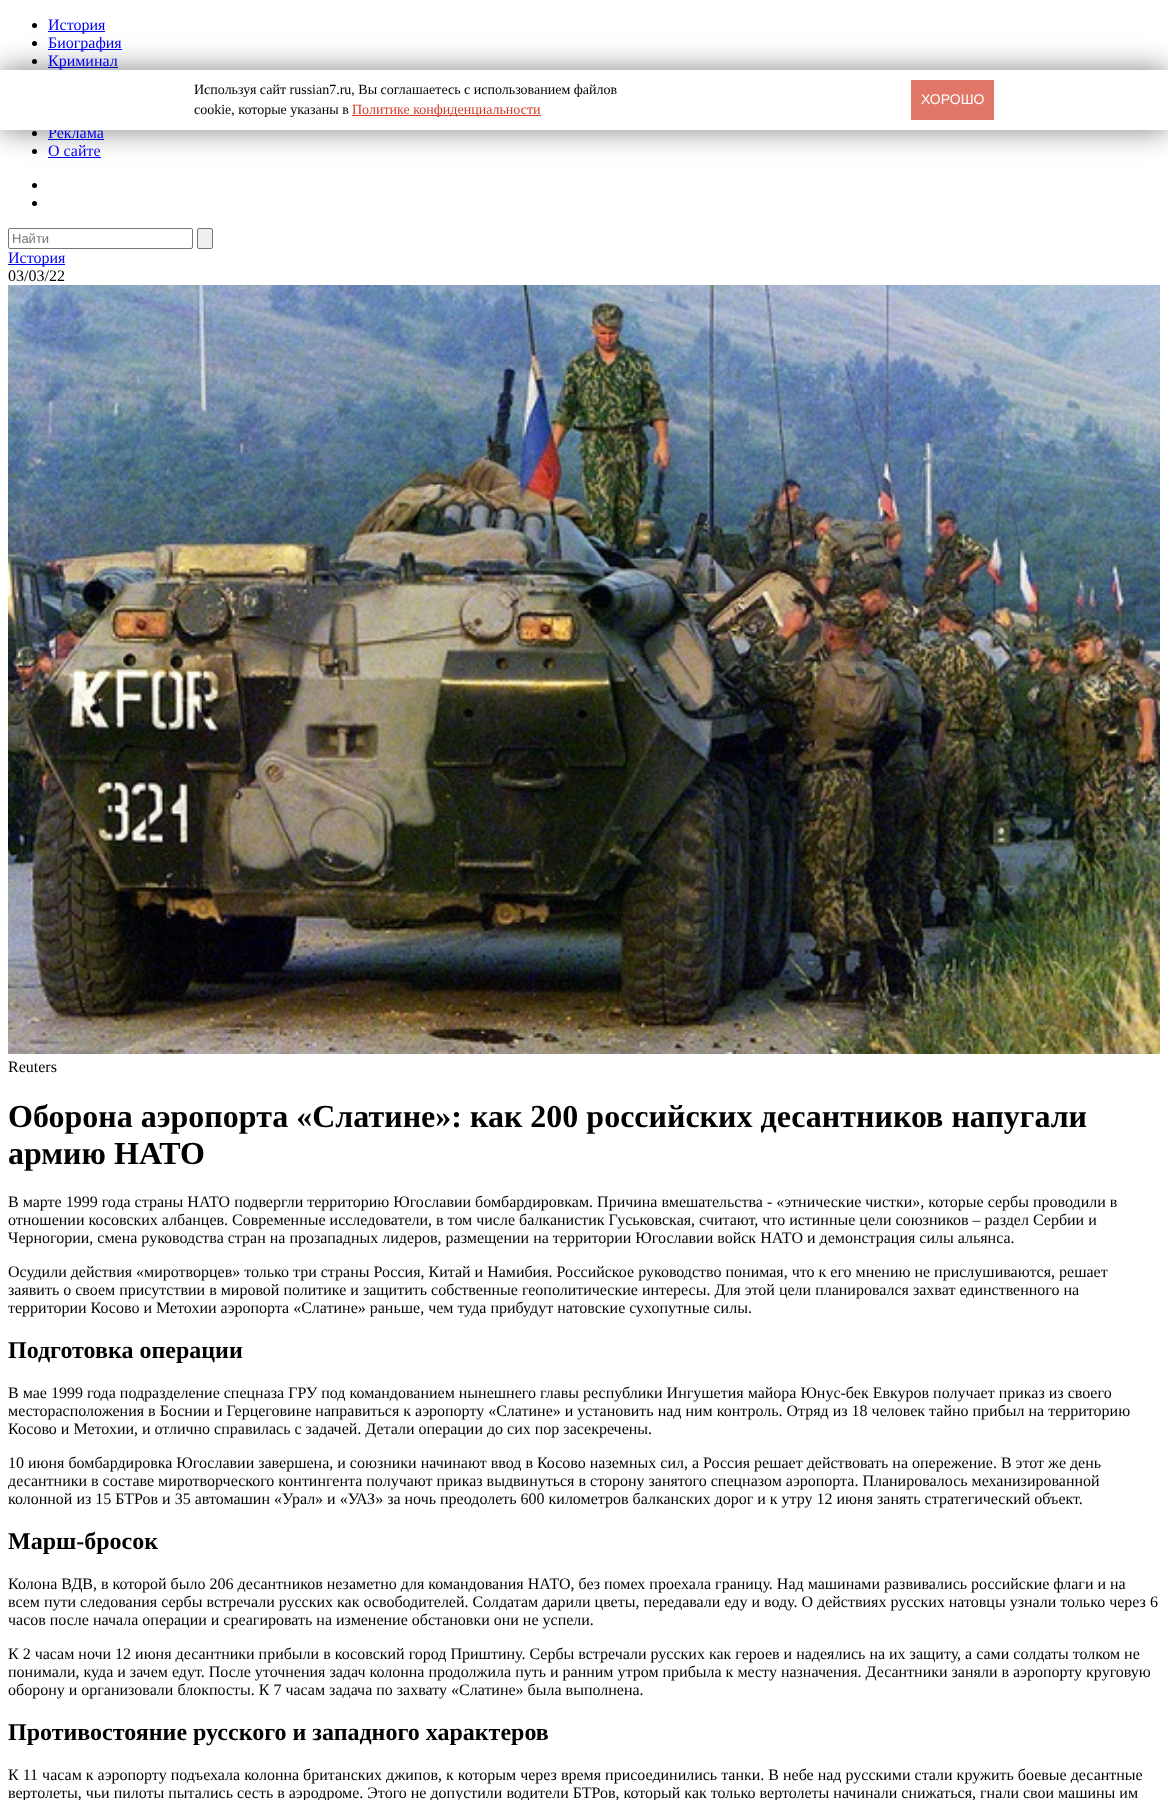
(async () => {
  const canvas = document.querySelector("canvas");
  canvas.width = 1168;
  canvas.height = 1800;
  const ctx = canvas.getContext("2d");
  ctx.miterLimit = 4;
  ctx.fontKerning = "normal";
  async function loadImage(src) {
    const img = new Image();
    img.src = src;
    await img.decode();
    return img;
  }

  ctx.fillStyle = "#ffffff";
  ctx.fillRect(0, 0, 1168, 1800);
  ctx.fillStyle = "#000000";
  ctx.beginPath();
  ctx.arc(34.5, 25.5, 2.5, 0, Math.PI * 2);
  ctx.fill();
  ctx.fillStyle = "#0000ee";
  ctx.fillRect(48, 31, 57, 1);
  ctx.fillStyle = "#000000";
  ctx.beginPath();
  ctx.arc(34.5, 43.5, 2.5, 0, Math.PI * 2);
  ctx.fill();
  ctx.fillStyle = "#0000ee";
  ctx.fillRect(48, 49, 74, 1);
  ctx.fillStyle = "#000000";
  ctx.beginPath();
  ctx.arc(34.5, 61.5, 2.5, 0, Math.PI * 2);
  ctx.fill();
  ctx.fillStyle = "#0000ee";
  ctx.fillRect(48, 67, 70, 1);
  ctx.fillStyle = "#000000";
  ctx.beginPath();
  ctx.arc(34.5, 133.5, 2.5, 0, Math.PI * 2);
  ctx.fill();
  ctx.fillStyle = "#0000ee";
  ctx.fillRect(48, 139, 56, 1);
  ctx.fillStyle = "#000000";
  ctx.beginPath();
  ctx.arc(34.5, 151.5, 2.5, 0, Math.PI * 2);
  ctx.fill();
  ctx.fillStyle = "#0000ee";
  ctx.fillRect(48, 157, 53, 1);
  ctx.fillStyle = "#000000";
  ctx.beginPath();
  ctx.arc(34.5, 185.5, 2.5, 0, Math.PI * 2);
  ctx.fill();
  ctx.beginPath();
  ctx.arc(34.5, 203.5, 2.5, 0, Math.PI * 2);
  ctx.fill();
  ctx.beginPath();
  ctx.roundRect(8.5, 228.5, 184, 20, 1.5);
  ctx.strokeStyle = "#767676";
  ctx.stroke();
  ctx.fillStyle = "#efefef";
  ctx.beginPath();
  ctx.roundRect(197.5, 228.5, 15, 20, 1.5);
  ctx.fill();
  ctx.stroke();
  ctx.fillStyle = "rgba(0, 0, 0, 0.5)";
  ctx.filter = "blur(15px)";
  ctx.beginPath();
  ctx.rect(0, 70, 1168, 60);
  ctx.fill();
  ctx.filter = "none";
  ctx.fillStyle = "#0000ee";
  ctx.fillRect(8, 264, 57, 1);
  ctx.drawImage(await loadImage("img/1.png"), 8, 285, 1152, 769);
  ctx.font = "16px Liberation Serif";
  for (const [text, x, y] of [
    ["История", 48, 30],
    ["Биография", 48, 48],
    ["Криминал", 48, 66],
    ["Реклама", 48, 138],
    ["О сайте", 48, 156],
  ]) {
    ctx.fillText(text, x, y);
  }
  ctx.font = "13px Liberation Sans";
  ctx.fillStyle = "#757575";
  ctx.fillText("Найти", 12, 243);
  ctx.fillStyle = "#ffffff";
  ctx.fillRect(0, 70, 1168, 60);
  ctx.font = "14px Liberation Serif";
  ctx.fillStyle = "#000000";
  ctx.fillText("Используя сайт russian7.ru, Вы соглашаетесь с использованием файлов", 194, 94);
  ctx.fillText("cookie, которые указаны в", 194, 114);
  ctx.fillStyle = "#d23c27";
  ctx.fillRect(352, 115, 189, 1);
  ctx.fillText("Политике конфиденциальности", 352, 114);
  ctx.fillStyle = "#e07768";
  ctx.fillRect(911, 80, 83, 40);
  ctx.font = "14px Liberation Sans";
  ctx.fillStyle = "#ffffff";
  ctx.fillText("ХОРОШО", 921, 104);
  ctx.font = "16px Liberation Serif";
  ctx.fillStyle = "#0000ee";
  ctx.fillText("История", 8, 263);
  ctx.fillStyle = "#000000";
  ctx.fillText("03/03/22", 8, 281);
  ctx.fillText("Reuters", 8, 1072);
  ctx.font = "bold 32px Liberation Serif";
  ctx.fillText("Оборона аэропорта «Слатине»: как 200 российских десантников напугали", 8, 1127);
  ctx.fillText("армию НАТО", 8, 1164);
  ctx.font = "16px Liberation Serif";
  for (const [text, x, y] of [
    ["В марте 1999 года страны НАТО подвергли территорию Югославии бомбардировкам. Причина вмешательства - «этнические чистки», которые сербы проводили в", 8, 1207],
    ["отношении косовских албанцев. Современные исследователи, в том числе балканистик Гуськовская, считают, что истинные цели союзников – раздел Сербии и", 8, 1225],
    ["Черногории, смена руководства стран на прозападных лидеров, размещении на территории Югославии войск НАТО и демонстрация силы альянса.", 8, 1243],
    ["Осудили действия «миротворцев» только три страны Россия, Китай и Намибия. Российское руководство понимая, что к его мнению не прислушиваются, решает", 8, 1277],
    ["заявить о своем присутствии в мировой политике и защитить собственные геополитические интересы. Для этой цели планировался захват единственного на", 8, 1295],
    ["территории Косово и Метохии аэропорта «Слатине» раньше, чем туда прибудут натовские сухопутные силы.", 8, 1313],
  ]) {
    ctx.fillText(text, x, y);
  }
  ctx.font = "bold 24px Liberation Serif";
  ctx.fillText("Подготовка операции", 8, 1358);
  ctx.font = "16px Liberation Serif";
  for (const [text, x, y] of [
    ["В мае 1999 года подразделение спецназа ГРУ под командованием нынешнего главы республики Ингушетия майора Юнус-бек Евкуров получает приказ из своего", 8, 1398],
    ["месторасположения в Боснии и Герцеговине направиться к аэропорту «Слатине» и установить над ним контроль. Отряд из 18 человек тайно прибыл на территорию", 8, 1416],
    ["Косово и Метохии, и отлично справилась с задачей. Детали операции до сих пор засекречены.", 8, 1434],
    ["10 июня бомбардировка Югославии завершена, и союзники начинают ввод в Косово наземных сил, а Россия решает действовать на опережение. В этот же день", 8, 1468],
    ["десантники в составе миротворческого контингента получают приказ выдвинуться в сторону занятого спецназом аэропорта. Планировалось механизированной", 8, 1486],
    ["колонной из 15 БТРов и 35 автомашин «Урал» и «УАЗ» за ночь преодолеть 600 километров балканских дорог и к утру 12 июня занять стратегический объект.", 8, 1504],
  ]) {
    ctx.fillText(text, x, y);
  }
  ctx.font = "bold 24px Liberation Serif";
  ctx.fillText("Марш-бросок", 8, 1549);
  ctx.font = "16px Liberation Serif";
  for (const [text, x, y] of [
    ["Колона ВДВ, в которой было 206 десантников незаметно для командования НАТО, без помех проехала границу. Над машинами развивались российские флаги и на", 8, 1589],
    ["всем пути следования сербы встречали русских как освободителей. Солдатам дарили цветы, передавали еду и воду. О действиях русских натовцы узнали только через 6", 8, 1607],
    ["часов после начала операции и среагировать на изменение обстановки они не успели.", 8, 1625],
    ["К 2 часам ночи 12 июня десантники прибыли в косовский город Приштину. Сербы встречали русских как героев и надеялись на их защиту, а сами солдаты толком не", 8, 1659],
    ["понимали, куда и зачем едут. После уточнения задач колонна продолжила путь и ранним утром прибыла к месту назначения. Десантники заняли в аэропорту круговую", 8, 1677],
    ["оборону и организовали блокпосты. К 7 часам задача по захвату «Слатине» была выполнена.", 8, 1695],
  ]) {
    ctx.fillText(text, x, y);
  }
  ctx.font = "bold 24px Liberation Serif";
  ctx.fillText("Противостояние русского и западного характеров", 8, 1740);
  ctx.font = "16px Liberation Serif";
  ctx.fillText("К 11 часам к аэропорту подъехала колонна британских джипов, к которым через время присоединились танки. В небе над русскими стали кружить боевые десантные", 8, 1780);
  ctx.fillText("вертолеты, чьи пилоты пытались сесть в аэродроме. Этого не допустили водители БТРов, который как только вертолеты начинали снижаться, гнали свои машины им", 8, 1798);
})();
